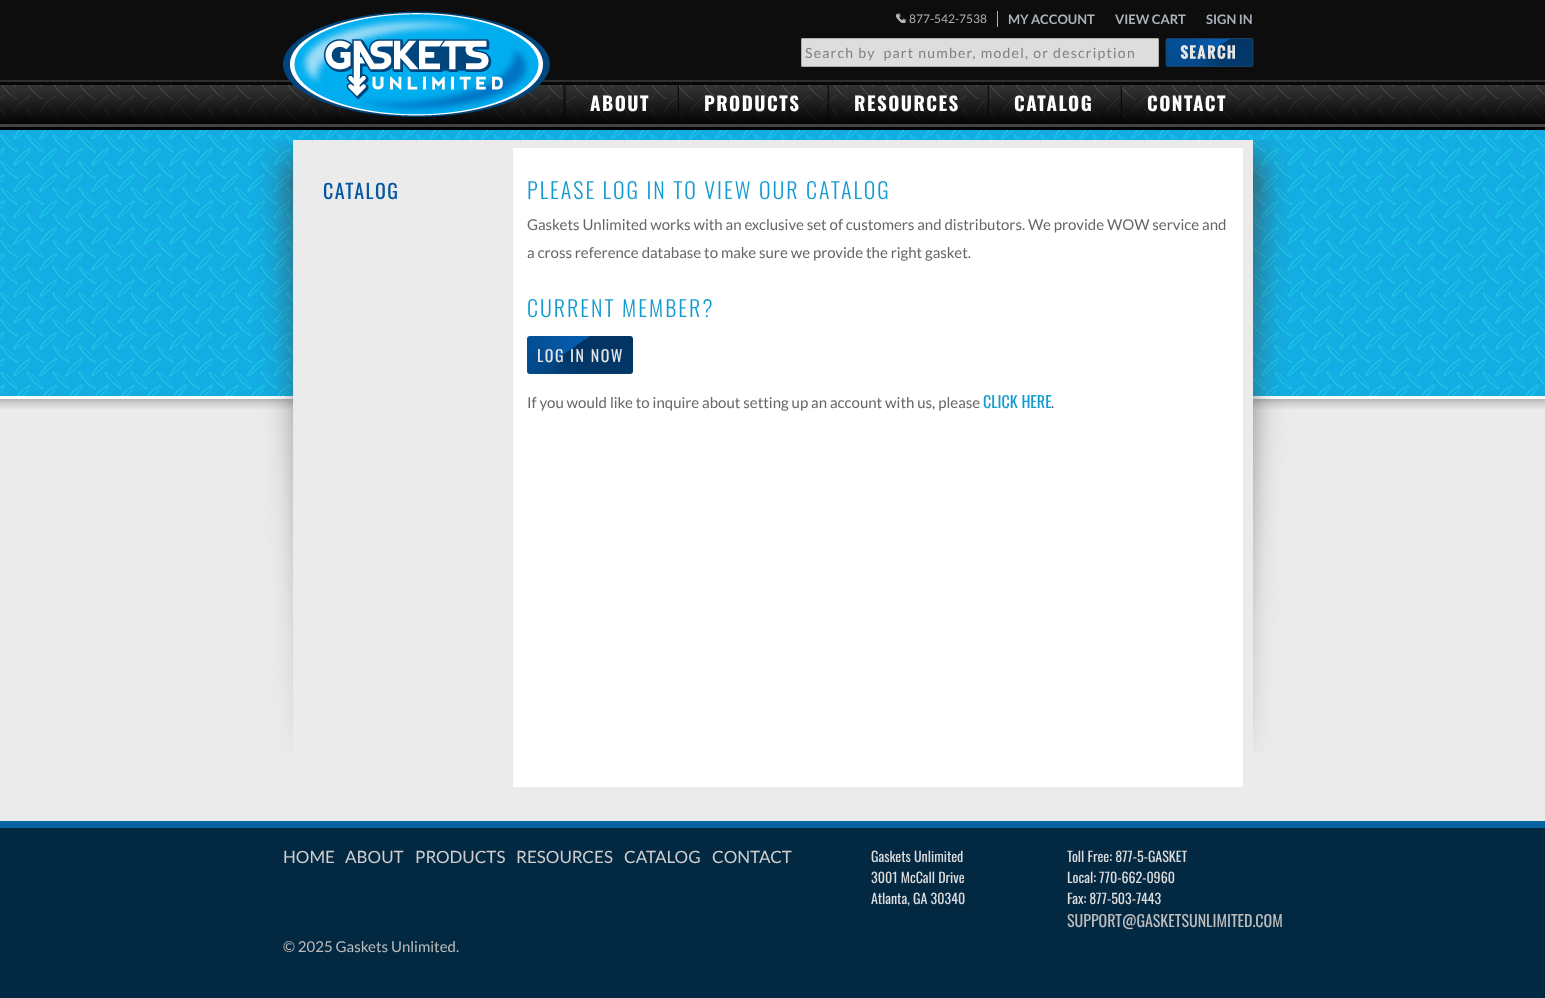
(async () => {
  const canvas = document.querySelector("canvas");
  canvas.width = 1545;
  canvas.height = 998;
  const ctx = canvas.getContext("2d");
  ctx.miterLimit = 4;
  ctx.fontKerning = "normal";
  async function loadImage(src) {
    const img = new Image();
    img.src = src;
    await img.decode();
    return img;
  }

  ctx.fillStyle = "#032841";
  ctx.fillRect(0, 0, 1545, 998);
  ctx.fillStyle = "#ebebeb";
  ctx.fillRect(0, 399, 1545, 422);
  ctx.drawImage(await loadImage("img/1.png"), 0, 0, 1545, 409);
  ctx.drawImage(await loadImage("img/2.png"), 283, 11, 267, 106);
  ctx.drawImage(await loadImage("img/3.png"), 896, 13, 10, 10);
  ctx.fillStyle = "#b0b0b0";
  ctx.fillRect(997, 11, 1, 16);
  ctx.fillStyle = "#dddddd";
  ctx.beginPath();
  ctx.roundRect(801.5, 38.5, 357, 28, 0.5);
  ctx.fill();
  ctx.strokeStyle = "#aeaeae";
  ctx.stroke();
  ctx.drawImage(await loadImage("img/4.png"), 1165, 38, 89, 29);
  ctx.fillStyle = "rgba(4, 4, 4, 0.47)";
  ctx.fillRect(563, 85, 3, 33);
  ctx.drawImage(await loadImage("img/5.png"), 677, 85, 2, 33);
  ctx.drawImage(await loadImage("img/6.png"), 827, 85, 2, 33);
  ctx.drawImage(await loadImage("img/7.png"), 987, 85, 2, 33);
  ctx.drawImage(await loadImage("img/8.png"), 1120, 85, 2, 33);
  ctx.drawImage(await loadImage("img/9.png"), 257, 140, 1033, 613);
  ctx.fillStyle = "#ffffff";
  ctx.fillRect(513, 148, 730, 639);
  ctx.drawImage(await loadImage("img/10.png"), 527, 336, 106, 38);
  ctx.fillStyle = "#0863a1";
  ctx.fillRect(0, 821, 1545, 7);
  ctx.font = "12px Lato";
  ctx.fillStyle = "#b0b0b0";
  ctx.fillText("877-542-7538", 909, 23);
  ctx.font = "bold 13px Lato";
  ctx.fillStyle = "#acb2bb";
  for (const [text, x, y] of [
    ["MY ACCOUNT", 1008, 24],
    ["VIEW CART", 1115, 24],
    ["SIGN IN", 1206, 24],
  ]) {
    ctx.fillText(text, x, y);
  }
  ctx.letterSpacing = "1.25px";
  ctx.font = "14px Lato";
  ctx.fillStyle = "#808080";
  ctx.fillText("Search by  part number, model, or description", 805, 58);
  ctx.letterSpacing = "1.5px";
  ctx.font = "bold 19px Oswald";
  ctx.fillStyle = "#ffffff";
  for (const [text, x, y] of [
    ["ABOUT", 590, 111],
    ["PRODUCTS", 704, 111],
    ["RESOURCES", 854, 111],
    ["CATALOG", 1014, 111],
    ["CONTACT", 1147, 111],
  ]) {
    ctx.fillText(text, x, y);
  }
  ctx.font = "20px Oswald";
  ctx.fillStyle = "#0456a1";
  ctx.fillText("CATALOG", 323, 199);
  ctx.letterSpacing = "2px";
  ctx.font = "300 22px Oswald";
  ctx.fillStyle = "#129bd1";
  ctx.fillText("PLEASE LOG IN TO VIEW OUR CATALOG", 527, 199);
  ctx.letterSpacing = "0px";
  ctx.font = "15px Lato";
  ctx.fillStyle = "#666666";
  ctx.fillText("Gaskets Unlimited works with an exclusive set of customers and distributors. We provide WOW service and", 527, 230);
  ctx.fillText("a cross reference database to make sure we provide the right gasket.", 527, 258);
  ctx.letterSpacing = "2px";
  ctx.font = "300 22px Oswald";
  ctx.fillStyle = "#129bd1";
  ctx.fillText("CURRENT MEMBER?", 527, 317);
  ctx.letterSpacing = "1.5px";
  ctx.font = "16px Oswald";
  ctx.fillStyle = "#e6e6e6";
  ctx.fillText("LOG IN NOW", 537, 362);
  ctx.letterSpacing = "0px";
  ctx.font = "15px Lato";
  ctx.fillStyle = "#666666";
  ctx.fillText("If you would like to inquire about setting up an account with us, please", 527, 408);
  ctx.font = "16px Oswald";
  ctx.fillStyle = "#129bd1";
  ctx.fillText("CLICK HERE", 983, 408);
  ctx.font = "15px Lato";
  ctx.fillStyle = "#666666";
  ctx.fillText(".", 1051, 408);
  ctx.font = "17px Lato";
  ctx.fillStyle = "#cecece";
  for (const [text, x, y] of [
    ["HOME", 283, 863],
    ["ABOUT", 345, 863],
    ["PRODUCTS", 415, 863],
    ["RESOURCES", 516, 863],
    ["CATALOG", 624, 863],
    ["CONTACT", 712, 863],
  ]) {
    ctx.fillText(text, x, y);
  }
  ctx.font = "14px Oswald";
  ctx.fillStyle = "#dddddd";
  for (const [text, x, y] of [
    ["Gaskets Unlimited", 871, 862],
    ["3001 McCall Drive", 871, 883],
    ["Atlanta, GA 30340", 871, 904],
    ["Toll Free: 877-5-GASKET", 1067, 862],
    ["Local: 770-662-0960", 1067, 883],
    ["Fax: 877-503-7443", 1067, 904],
  ]) {
    ctx.fillText(text, x, y);
  }
  ctx.font = "16px Oswald";
  ctx.fillStyle = "#bdbdbd";
  ctx.fillText("SUPPORT@GASKETSUNLIMITED.COM", 1067, 927);
  ctx.font = "15px Lato";
  ctx.fillText("© 2025 Gaskets Unlimited.", 283, 952);
})();
